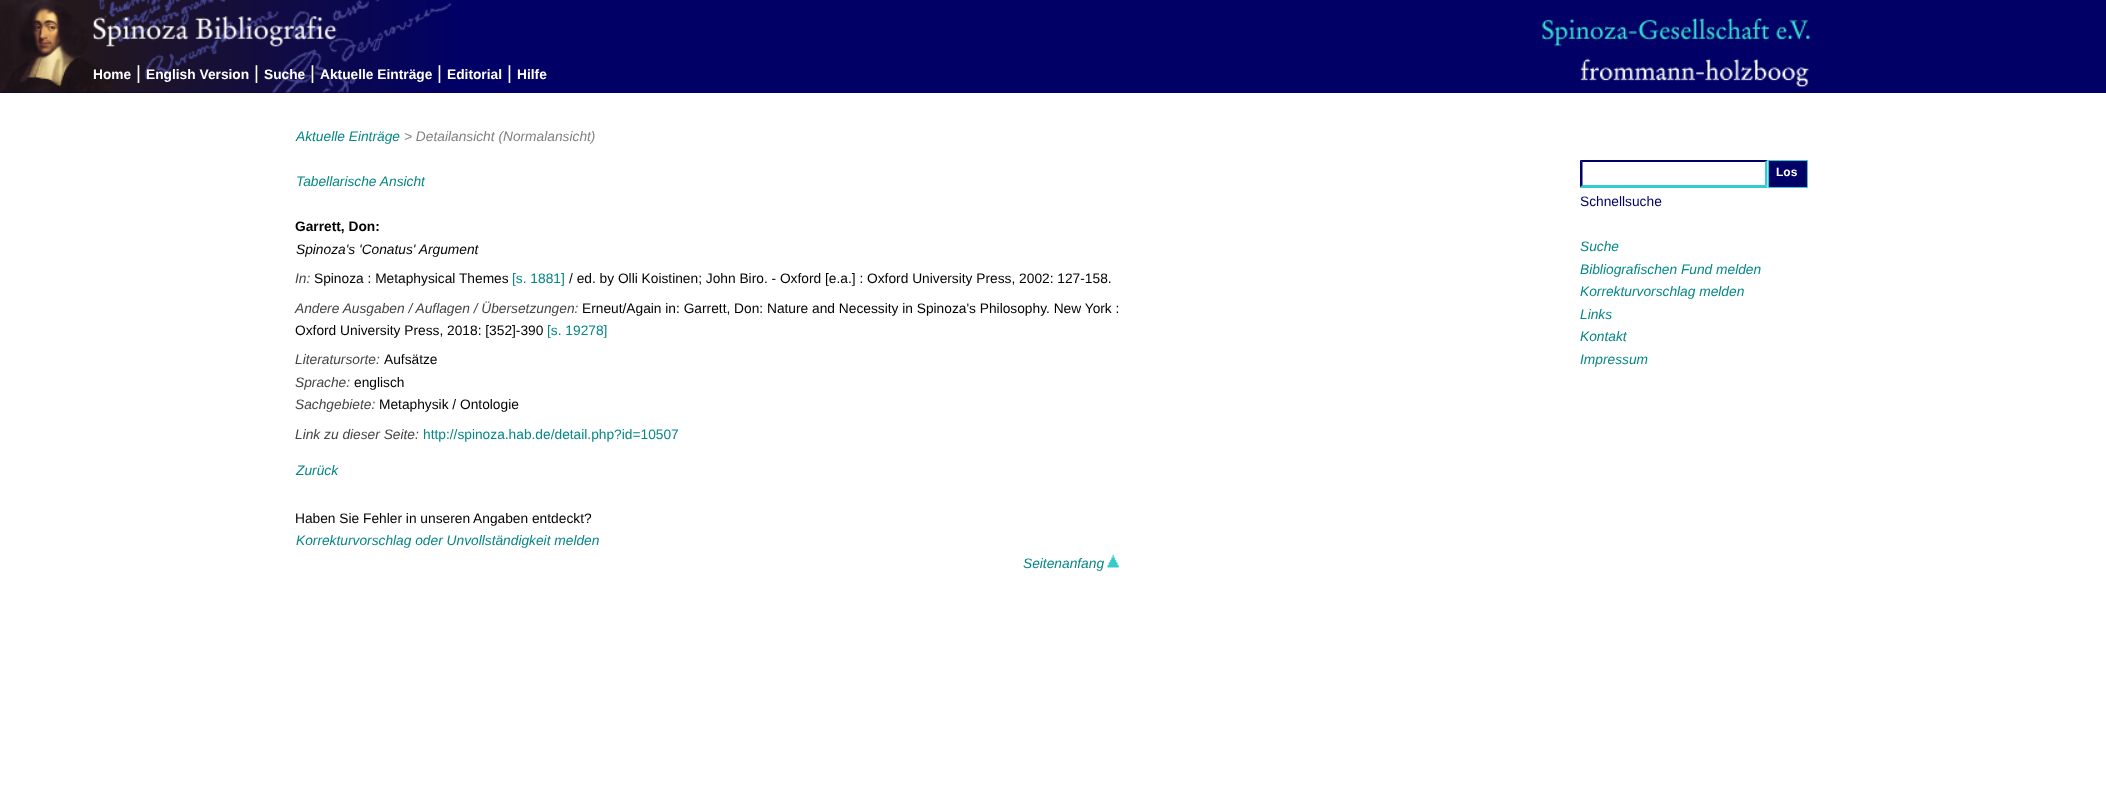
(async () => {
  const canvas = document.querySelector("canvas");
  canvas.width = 2106;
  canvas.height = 787;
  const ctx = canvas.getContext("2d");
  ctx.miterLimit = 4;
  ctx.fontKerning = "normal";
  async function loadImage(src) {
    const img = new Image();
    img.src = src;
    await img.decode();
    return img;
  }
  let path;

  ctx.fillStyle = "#ffffff";
  ctx.fillRect(0, 0, 2106, 787);
  ctx.fillStyle = "#000066";
  ctx.fillRect(0, 0, 2106, 93);
  ctx.drawImage(await loadImage("img/1.png"), 0, 0, 452, 93);
  ctx.drawImage(await loadImage("img/2.png"), 1542, 17, 268, 30);
  ctx.drawImage(await loadImage("img/3.png"), 1580, 58, 229, 30);
  ctx.drawImage(await loadImage("img/4.png"), 1107, 555, 12, 13);
  path = new Path2D("M1580 160H1768L1765 162H1582Z");
  ctx.fill(path);
  ctx.fillStyle = "#33cccc";
  path = new Path2D("M1767.5 160V187.5L1765 185V162.5Z");
  ctx.fill(path);
  path = new Path2D("M1768 188H1580L1582 185H1765Z");
  ctx.fill(path);
  ctx.fillStyle = "#000066";
  path = new Path2D("M1580 187.5V160L1582.5 162.5V185Z");
  ctx.fill(path);
  ctx.beginPath();
  ctx.rect(1768.5, 160.5, 39, 27);
  ctx.fill();
  ctx.strokeStyle = "#33cccc";
  ctx.stroke();
  ctx.font = "bold 13.75px Liberation Sans";
  ctx.fillStyle = "#ffffff";
  ctx.fillText("Home", 93, 79);
  ctx.font = "19px Liberation Sans";
  ctx.fillText("|", 136, 79);
  ctx.font = "bold 13.75px Liberation Sans";
  ctx.fillText("English Version", 146, 79);
  ctx.font = "19px Liberation Sans";
  ctx.fillText("|", 254, 79);
  ctx.font = "bold 13.75px Liberation Sans";
  ctx.fillText("Suche", 264, 79);
  ctx.font = "19px Liberation Sans";
  ctx.fillText("|", 310, 79);
  ctx.font = "bold 13.75px Liberation Sans";
  ctx.fillText("Aktuelle Einträge", 320, 79);
  ctx.font = "19px Liberation Sans";
  ctx.fillText("|", 437, 79);
  ctx.font = "bold 13.75px Liberation Sans";
  ctx.fillText("Editorial", 447, 79);
  ctx.font = "19px Liberation Sans";
  ctx.fillText("|", 507, 79);
  ctx.font = "bold 13.75px Liberation Sans";
  ctx.fillText("Hilfe", 517, 79);
  ctx.font = "italic 13.75px Liberation Sans";
  ctx.fillStyle = "#068686";
  ctx.fillText("Aktuelle Einträge", 296, 141);
  ctx.fillStyle = "#808080";
  ctx.fillText("> Detailansicht (Normalansicht)", 404, 141);
  ctx.fillStyle = "#068686";
  ctx.fillText("Tabellarische Ansicht", 296, 186);
  ctx.font = "bold 13.75px Liberation Sans";
  ctx.fillStyle = "#000000";
  ctx.fillText("Garrett, Don:", 295, 231);
  ctx.font = "italic 13.75px Liberation Sans";
  ctx.fillText("Spinoza's 'Conatus' Argument", 296, 254);
  ctx.fillStyle = "#444444";
  ctx.fillText("In:", 295, 283);
  ctx.font = "13.75px Liberation Sans";
  ctx.fillStyle = "#000000";
  ctx.fillText("Spinoza : Metaphysical Themes", 314, 283);
  ctx.fillStyle = "#068686";
  ctx.fillText("[s. 1881]", 512, 283);
  ctx.fillStyle = "#000000";
  ctx.fillText("/ ed. by Olli Koistinen; John Biro. - Oxford [e.a.] : Oxford University Press, 2002: 127-158.", 569, 283);
  ctx.font = "italic 13.75px Liberation Sans";
  ctx.fillStyle = "#444444";
  ctx.fillText("Andere Ausgaben / Auflagen / Übersetzungen:", 295, 313);
  ctx.font = "13.75px Liberation Sans";
  ctx.fillStyle = "#000000";
  ctx.fillText("Erneut/Again in: Garrett, Don: Nature and Necessity in Spinoza's Philosophy. New York :", 582, 313);
  ctx.fillText("Oxford University Press, 2018: [352]-390", 295, 335);
  ctx.fillStyle = "#068686";
  ctx.fillText("[s. 19278]", 547, 335);
  ctx.font = "italic 13.75px Liberation Sans";
  ctx.fillStyle = "#444444";
  ctx.fillText("Literatursorte:", 295, 364);
  ctx.font = "13.75px Liberation Sans";
  ctx.fillStyle = "#000000";
  ctx.fillText("Aufsätze", 384, 364);
  ctx.font = "italic 13.75px Liberation Sans";
  ctx.fillStyle = "#444444";
  ctx.fillText("Sprache:", 295, 387);
  ctx.font = "13.75px Liberation Sans";
  ctx.fillStyle = "#000000";
  ctx.fillText("englisch", 354, 387);
  ctx.font = "italic 13.75px Liberation Sans";
  ctx.fillStyle = "#444444";
  ctx.fillText("Sachgebiete:", 295, 409);
  ctx.font = "13.75px Liberation Sans";
  ctx.fillStyle = "#000000";
  ctx.fillText("Metaphysik / Ontologie", 379, 409);
  ctx.font = "italic 13.75px Liberation Sans";
  ctx.fillStyle = "#444444";
  ctx.fillText("Link zu dieser Seite:", 295, 439);
  ctx.font = "13.75px Liberation Sans";
  ctx.fillStyle = "#068686";
  ctx.fillText("http://spinoza.hab.de/detail.php?id=10507", 423, 439);
  ctx.font = "italic 13.75px Liberation Sans";
  ctx.fillText("Zurück", 296, 475);
  ctx.font = "13.75px Liberation Sans";
  ctx.fillStyle = "#000000";
  ctx.fillText("Haben Sie Fehler in unseren Angaben entdeckt?", 295, 523);
  ctx.font = "italic 13.75px Liberation Sans";
  ctx.fillStyle = "#068686";
  ctx.fillText("Korrekturvorschlag oder Unvollständigkeit melden", 296, 545);
  ctx.fillText("Seitenanfang", 1023, 568);
  ctx.font = "bold 12px Liberation Sans";
  ctx.fillStyle = "#ffffff";
  ctx.fillText("Los", 1776, 176);
  ctx.font = "13.75px Liberation Sans";
  ctx.fillStyle = "#000066";
  ctx.fillText("Schnellsuche", 1580, 206);
  ctx.font = "italic 13.75px Liberation Sans";
  ctx.fillStyle = "#068686";
  for (const [text, x, y] of [
    ["Suche", 1580, 251],
    ["Bibliografischen Fund melden", 1580, 274],
    ["Korrekturvorschlag melden", 1580, 296],
    ["Links", 1580, 319],
    ["Kontakt", 1580, 341],
    ["Impressum", 1580, 364],
  ]) {
    ctx.fillText(text, x, y);
  }
})();
